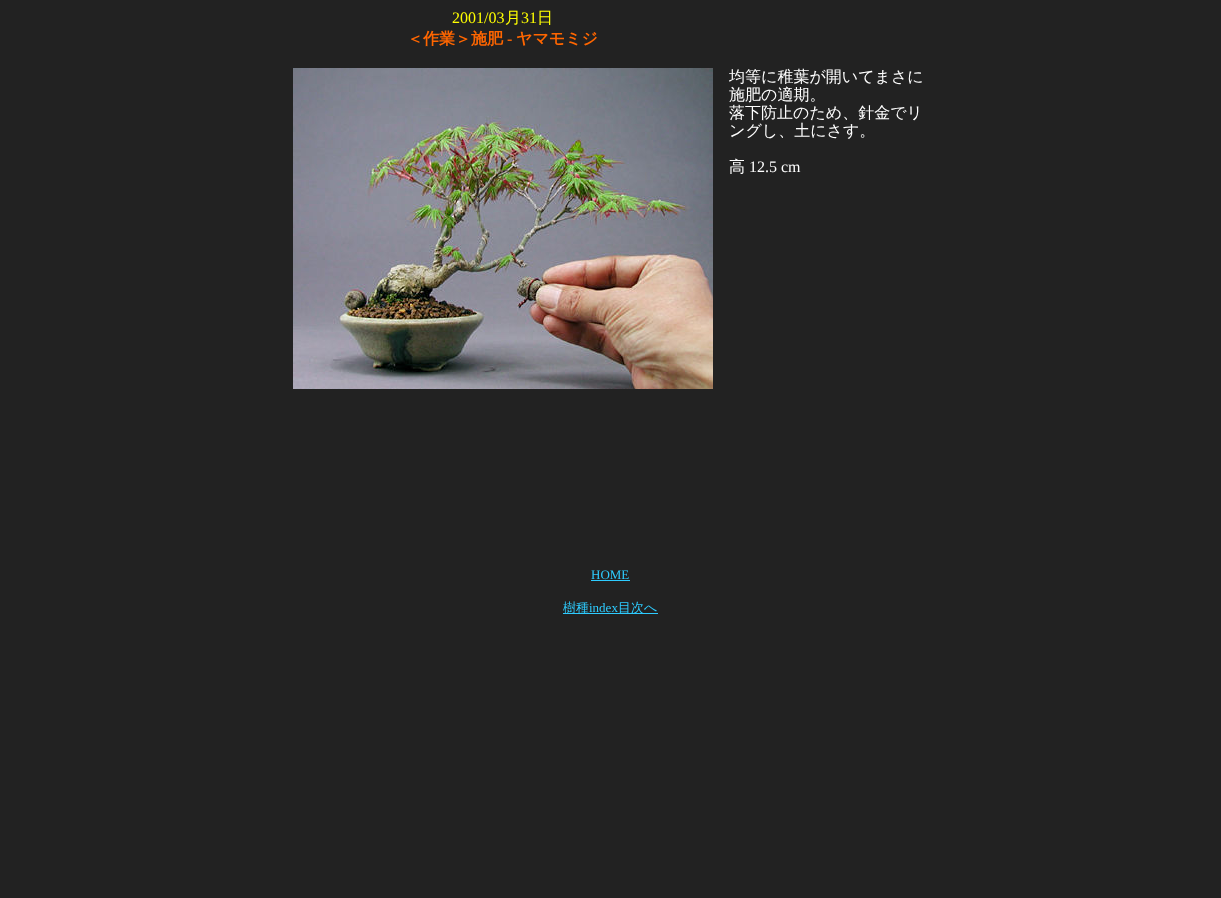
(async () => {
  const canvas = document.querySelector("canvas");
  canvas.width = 1221;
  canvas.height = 898;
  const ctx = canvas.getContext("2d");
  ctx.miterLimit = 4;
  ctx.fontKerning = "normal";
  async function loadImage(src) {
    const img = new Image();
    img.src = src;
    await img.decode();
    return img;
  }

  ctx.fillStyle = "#222222";
  ctx.fillRect(0, 0, 1221, 898);
  ctx.drawImage(await loadImage("img/1.png"), 293, 68, 420, 321);
  ctx.fillStyle = "#2eccff";
  ctx.fillRect(591, 580, 39, 1);
  ctx.fillRect(563, 613, 95, 1);
  ctx.font = "16px Liberation Serif";
  ctx.fillStyle = "#ffff00";
  ctx.fillText("2001/03", 452, 23);
  ctx.font = "500 16px WenQuanYi Zen Hei";
  ctx.fillText("月", 505, 23);
  ctx.font = "16px Liberation Serif";
  ctx.fillText("31", 521, 23);
  ctx.font = "500 16px WenQuanYi Zen Hei";
  ctx.fillText("日", 537, 23);
  ctx.font = "bold 16px WenQuanYi Zen Hei";
  ctx.fillStyle = "#ff6600";
  ctx.fillText("＜作業＞施肥", 407, 44);
  ctx.font = "bold 16px Liberation Serif";
  ctx.fillText("-", 507, 44);
  ctx.font = "bold 16px WenQuanYi Zen Hei";
  ctx.fillText("ヤマモミジ", 516, 44);
  ctx.font = "500 16px WenQuanYi Zen Hei";
  ctx.fillStyle = "#ffffff";
  for (const [text, x, y] of [
    ["均等に稚葉が開いてまさに", 729, 82],
    ["施肥の適期。", 729, 100],
    ["落下防止のため、針金でリ", 729, 118],
    ["ングし、土にさす。", 729, 136],
    ["高", 729, 172],
  ]) {
    ctx.fillText(text, x, y);
  }
  ctx.font = "16px Liberation Serif";
  ctx.fillText("12.5 cm", 749, 172);
  ctx.font = "13px Liberation Serif";
  ctx.fillStyle = "#2eccff";
  ctx.fillText("HOME", 591, 579);
  ctx.font = "500 13px WenQuanYi Zen Hei";
  ctx.fillText("樹種", 563, 612);
  ctx.font = "13px Liberation Serif";
  ctx.fillText("index", 589, 612);
  ctx.font = "500 13px WenQuanYi Zen Hei";
  ctx.fillText("目次へ", 618, 612);
})();
